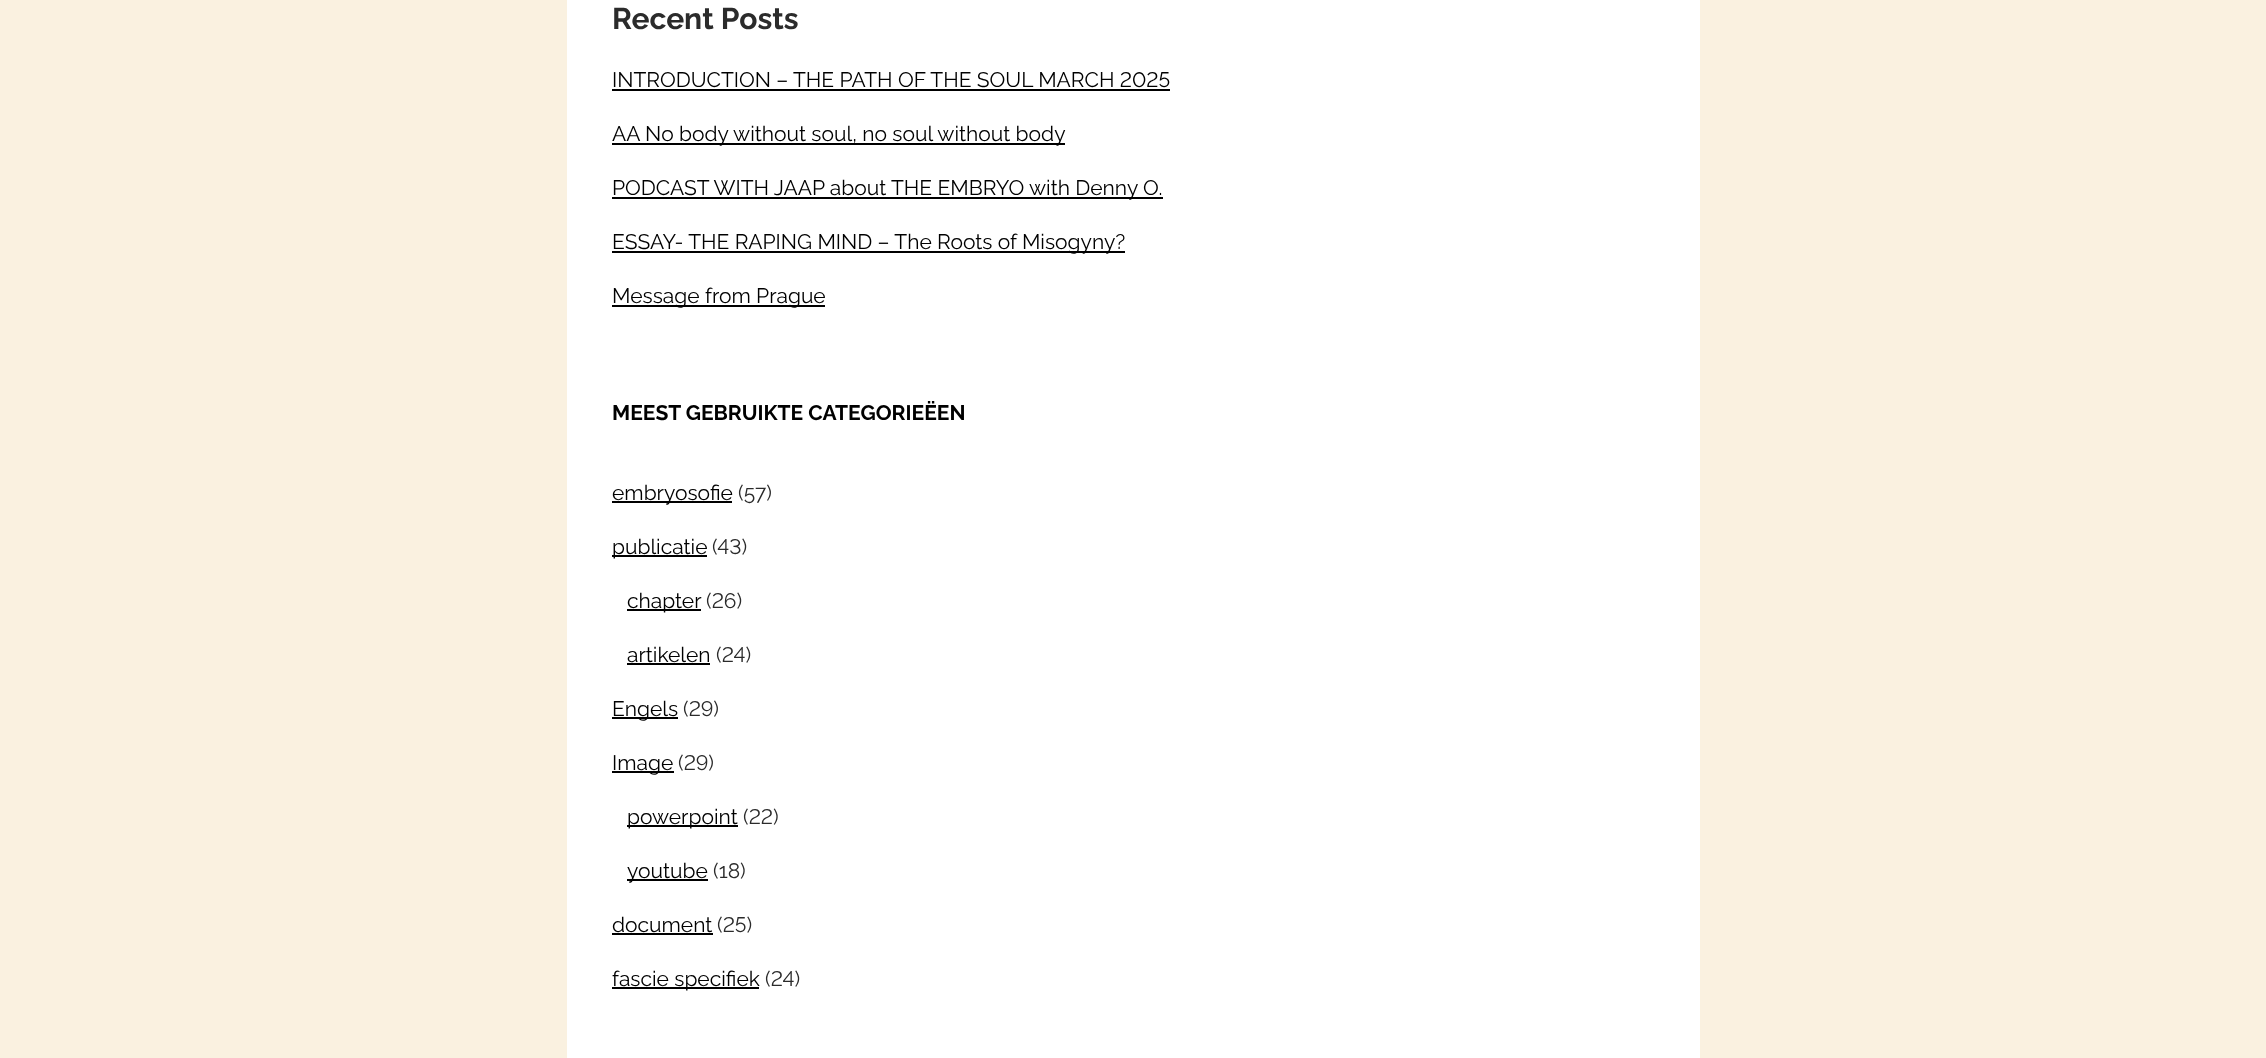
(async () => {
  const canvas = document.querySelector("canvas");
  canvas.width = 2266;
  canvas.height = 1058;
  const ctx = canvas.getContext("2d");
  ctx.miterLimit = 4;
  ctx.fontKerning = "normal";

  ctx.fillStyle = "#faf1e0";
  ctx.fillRect(0, 0, 2266, 1058);
  for (const [x, y, w, h, color] of [
    [567, 0, 1133, 1058, "#ffffff"],
    [612, 89, 558, 2, "#000000"],
    [612, 143, 453, 2, "#000000"],
    [612, 197, 551, 2, "#000000"],
    [612, 251, 513, 2, "#000000"],
    [612, 305, 213, 2, "#000000"],
    [612, 501, 120, 2, "#000000"],
    [612, 555, 95, 2, "#000000"],
    [627, 609, 74, 2, "#000000"],
    [627, 663, 83, 2, "#000000"],
    [612, 717, 66, 2, "#000000"],
    [612, 771, 62, 2, "#000000"],
    [627, 825, 111, 2, "#000000"],
    [627, 879, 81, 2, "#000000"],
    [612, 933, 101, 2, "#000000"],
    [612, 987, 147, 2, "#000000"],
  ]) {
    ctx.fillStyle = color;
    ctx.fillRect(x, y, w, h);
  }
  ctx.font = "bold 30px Raleway";
  ctx.fillStyle = "#2b2b2b";
  ctx.fillText("Recent Posts", 612, 29);
  ctx.font = "21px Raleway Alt";
  ctx.fillStyle = "#000000";
  ctx.fillText("INTRODUCTION – THE PATH OF THE SOUL MARCH 2025", 612, 87);
  ctx.font = "21px Raleway";
  for (const [text, x, y] of [
    ["AA No body without soul, no soul without body", 612, 141],
    ["PODCAST WITH JAAP about THE EMBRYO with Denny O.", 612, 195],
    ["ESSAY- THE RAPING MIND – The Roots of Misogyny?", 612, 249],
    ["Message from Prague", 612, 303],
  ]) {
    ctx.fillText(text, x, y);
  }
  ctx.font = "bold 21px Raleway";
  ctx.fillText("MEEST GEBRUIKTE CATEGORIEËEN", 612, 420);
  ctx.font = "21px Raleway";
  ctx.fillText("embryosofie", 612, 500);
  ctx.fillStyle = "#2b2b2b";
  ctx.fillText("(57)", 738, 500);
  ctx.fillStyle = "#000000";
  ctx.fillText("publicatie", 612, 554);
  ctx.font = "21px Raleway Alt";
  ctx.fillStyle = "#2b2b2b";
  ctx.fillText("(43)", 712, 554);
  ctx.font = "21px Raleway";
  ctx.fillStyle = "#000000";
  ctx.fillText("chapter", 627, 608);
  ctx.font = "21px Raleway Alt";
  ctx.fillStyle = "#2b2b2b";
  ctx.fillText("(26)", 706, 608);
  ctx.font = "21px Raleway";
  ctx.fillStyle = "#000000";
  ctx.fillText("artikelen", 627, 662);
  ctx.font = "21px Raleway Alt";
  ctx.fillStyle = "#2b2b2b";
  ctx.fillText("(24)", 716, 662);
  ctx.font = "21px Raleway";
  ctx.fillStyle = "#000000";
  ctx.fillText("Engels", 612, 716);
  ctx.font = "21px Raleway Alt";
  ctx.fillStyle = "#2b2b2b";
  ctx.fillText("(29)", 683, 716);
  ctx.font = "21px Raleway";
  ctx.fillStyle = "#000000";
  ctx.fillText("Image", 612, 770);
  ctx.font = "21px Raleway Alt";
  ctx.fillStyle = "#2b2b2b";
  ctx.fillText("(29)", 678, 770);
  ctx.font = "21px Raleway";
  ctx.fillStyle = "#000000";
  ctx.fillText("powerpoint", 627, 824);
  ctx.font = "21px Raleway Alt";
  ctx.fillStyle = "#2b2b2b";
  ctx.fillText("(22)", 743, 824);
  ctx.font = "21px Raleway";
  ctx.fillStyle = "#000000";
  ctx.fillText("youtube", 627, 878);
  ctx.fillStyle = "#2b2b2b";
  ctx.fillText("(18)", 713, 878);
  ctx.fillStyle = "#000000";
  ctx.fillText("document", 612, 932);
  ctx.font = "21px Raleway Alt";
  ctx.fillStyle = "#2b2b2b";
  ctx.fillText("(25)", 717, 932);
  ctx.font = "21px Raleway";
  ctx.fillStyle = "#000000";
  ctx.fillText("fascie specifiek", 612, 986);
  ctx.font = "21px Raleway Alt";
  ctx.fillStyle = "#2b2b2b";
  ctx.fillText("(24)", 765, 986);
})();
